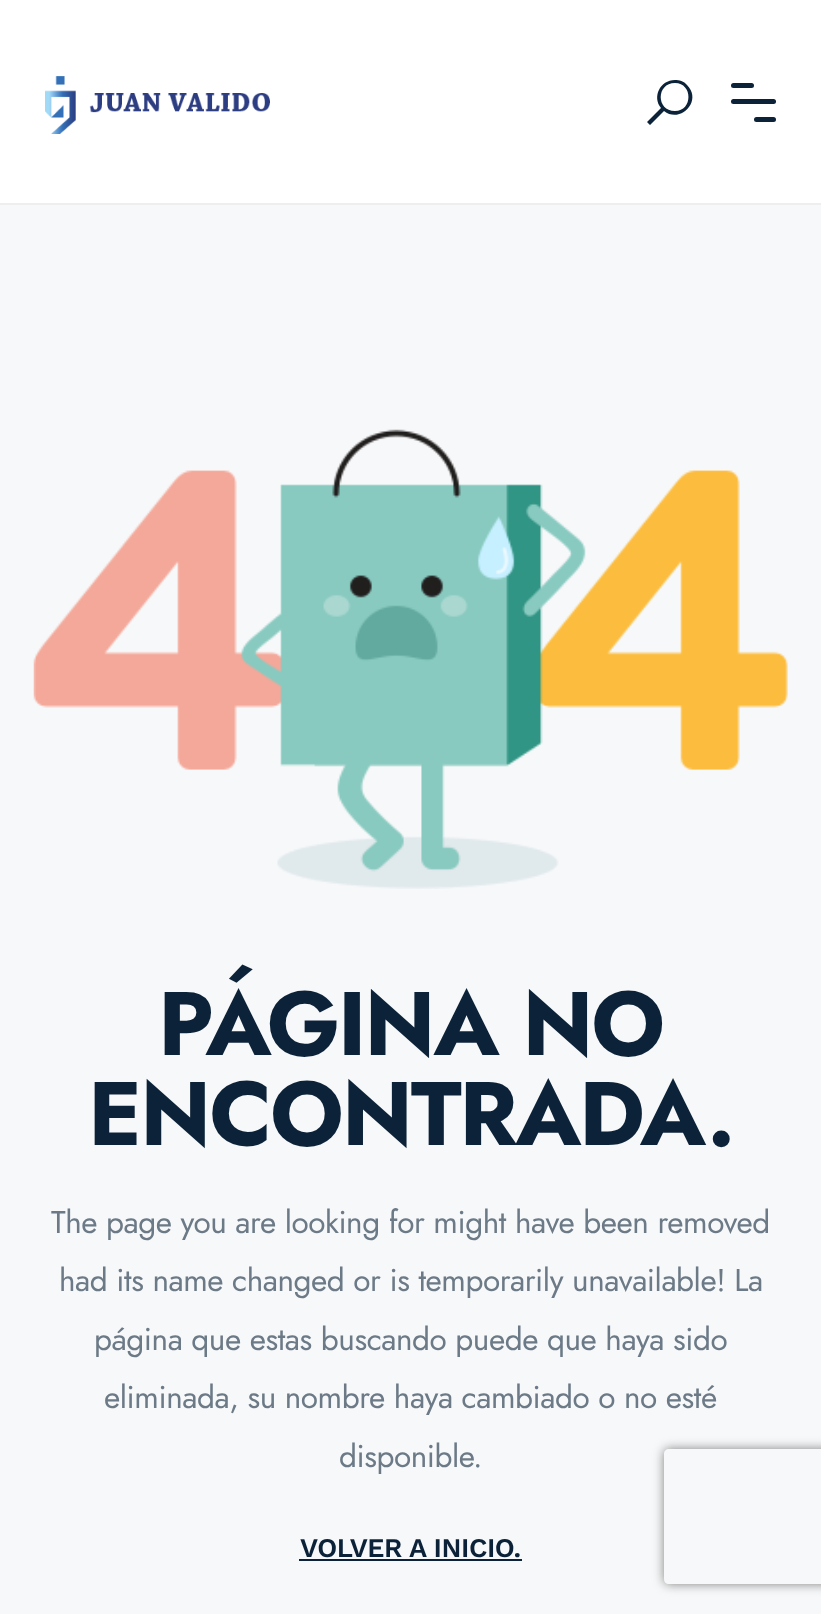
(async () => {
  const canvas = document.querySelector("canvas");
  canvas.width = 821;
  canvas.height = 1614;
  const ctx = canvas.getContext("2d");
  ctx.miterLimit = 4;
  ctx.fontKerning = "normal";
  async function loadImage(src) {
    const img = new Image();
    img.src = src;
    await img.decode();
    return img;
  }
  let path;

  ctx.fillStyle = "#f7f8f9";
  ctx.fillRect(0, 0, 821, 1614);
  ctx.fillStyle = "#ffffff";
  ctx.fillRect(0, 0, 821, 203);
  ctx.fillStyle = "#eeeeee";
  ctx.fillRect(0, 203, 821, 2);
  ctx.drawImage(await loadImage("img/1.png"), 45, 76, 225, 58);
  ctx.fillStyle = "#0b2238";
  path = new Path2D("M675 80C660 80 652 97 661 108L647 122L650 125L664 111C680 124 703 101 687 85C684 81 679 80 675 80ZM675 83C693 83 693 111 675 111C656 111 656 83 675 83Z");
  ctx.fill(path);
  ctx.beginPath();
  ctx.roundRect(731, 83, 23, 5, 2.5);
  ctx.fill();
  ctx.beginPath();
  ctx.roundRect(731, 99, 45, 5, 2.5);
  ctx.fill();
  ctx.beginPath();
  ctx.roundRect(754, 117, 22, 5, 2.5);
  ctx.fill();
  ctx.drawImage(await loadImage("img/2.png"), 33, 429, 755, 460);
  ctx.fillRect(299, 1559, 223, 2);
  ctx.save();
  path = new Path2D("M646 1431H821V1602H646ZM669 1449H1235C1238 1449 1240 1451 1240 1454V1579C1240 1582 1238 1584 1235 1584H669C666 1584 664 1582 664 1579V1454C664 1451 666 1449 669 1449Z");
  ctx.clip(path, "evenodd");
  ctx.fillStyle = "#808080";
  ctx.filter = "blur(5.5px)";
  ctx.beginPath();
  ctx.roundRect(664, 1449, 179, 135, 5);
  ctx.fill();
  ctx.filter = "none";
  ctx.restore();
  ctx.letterSpacing = "-2.25px";
  ctx.font = "bold 90px Jost";
  ctx.fillText("PÁGINA NO", 158, 1055);
  ctx.fillText("ENCONTRADA.", 88, 1145);
  ctx.letterSpacing = "-0.45px";
  ctx.font = "31.5px Jost";
  ctx.fillStyle = "#6c7a87";
  for (const [text, x, y] of [
    ["The page you are looking for might have been removed", 51, 1233],
    ["had its name changed or is temporarily unavailable! La", 59, 1291],
    ["página que estas buscando puede que haya sido", 94, 1350],
    ["eliminada, su nombre haya cambiado o no esté", 104, 1408],
    ["disponible.", 339, 1467],
  ]) {
    ctx.fillText(text, x, y);
  }
  ctx.font = "600 27px Work Sans";
  ctx.fillStyle = "#0b2238";
  ctx.fillText("VOLVER A INICIO.", 300, 1557);
})();
